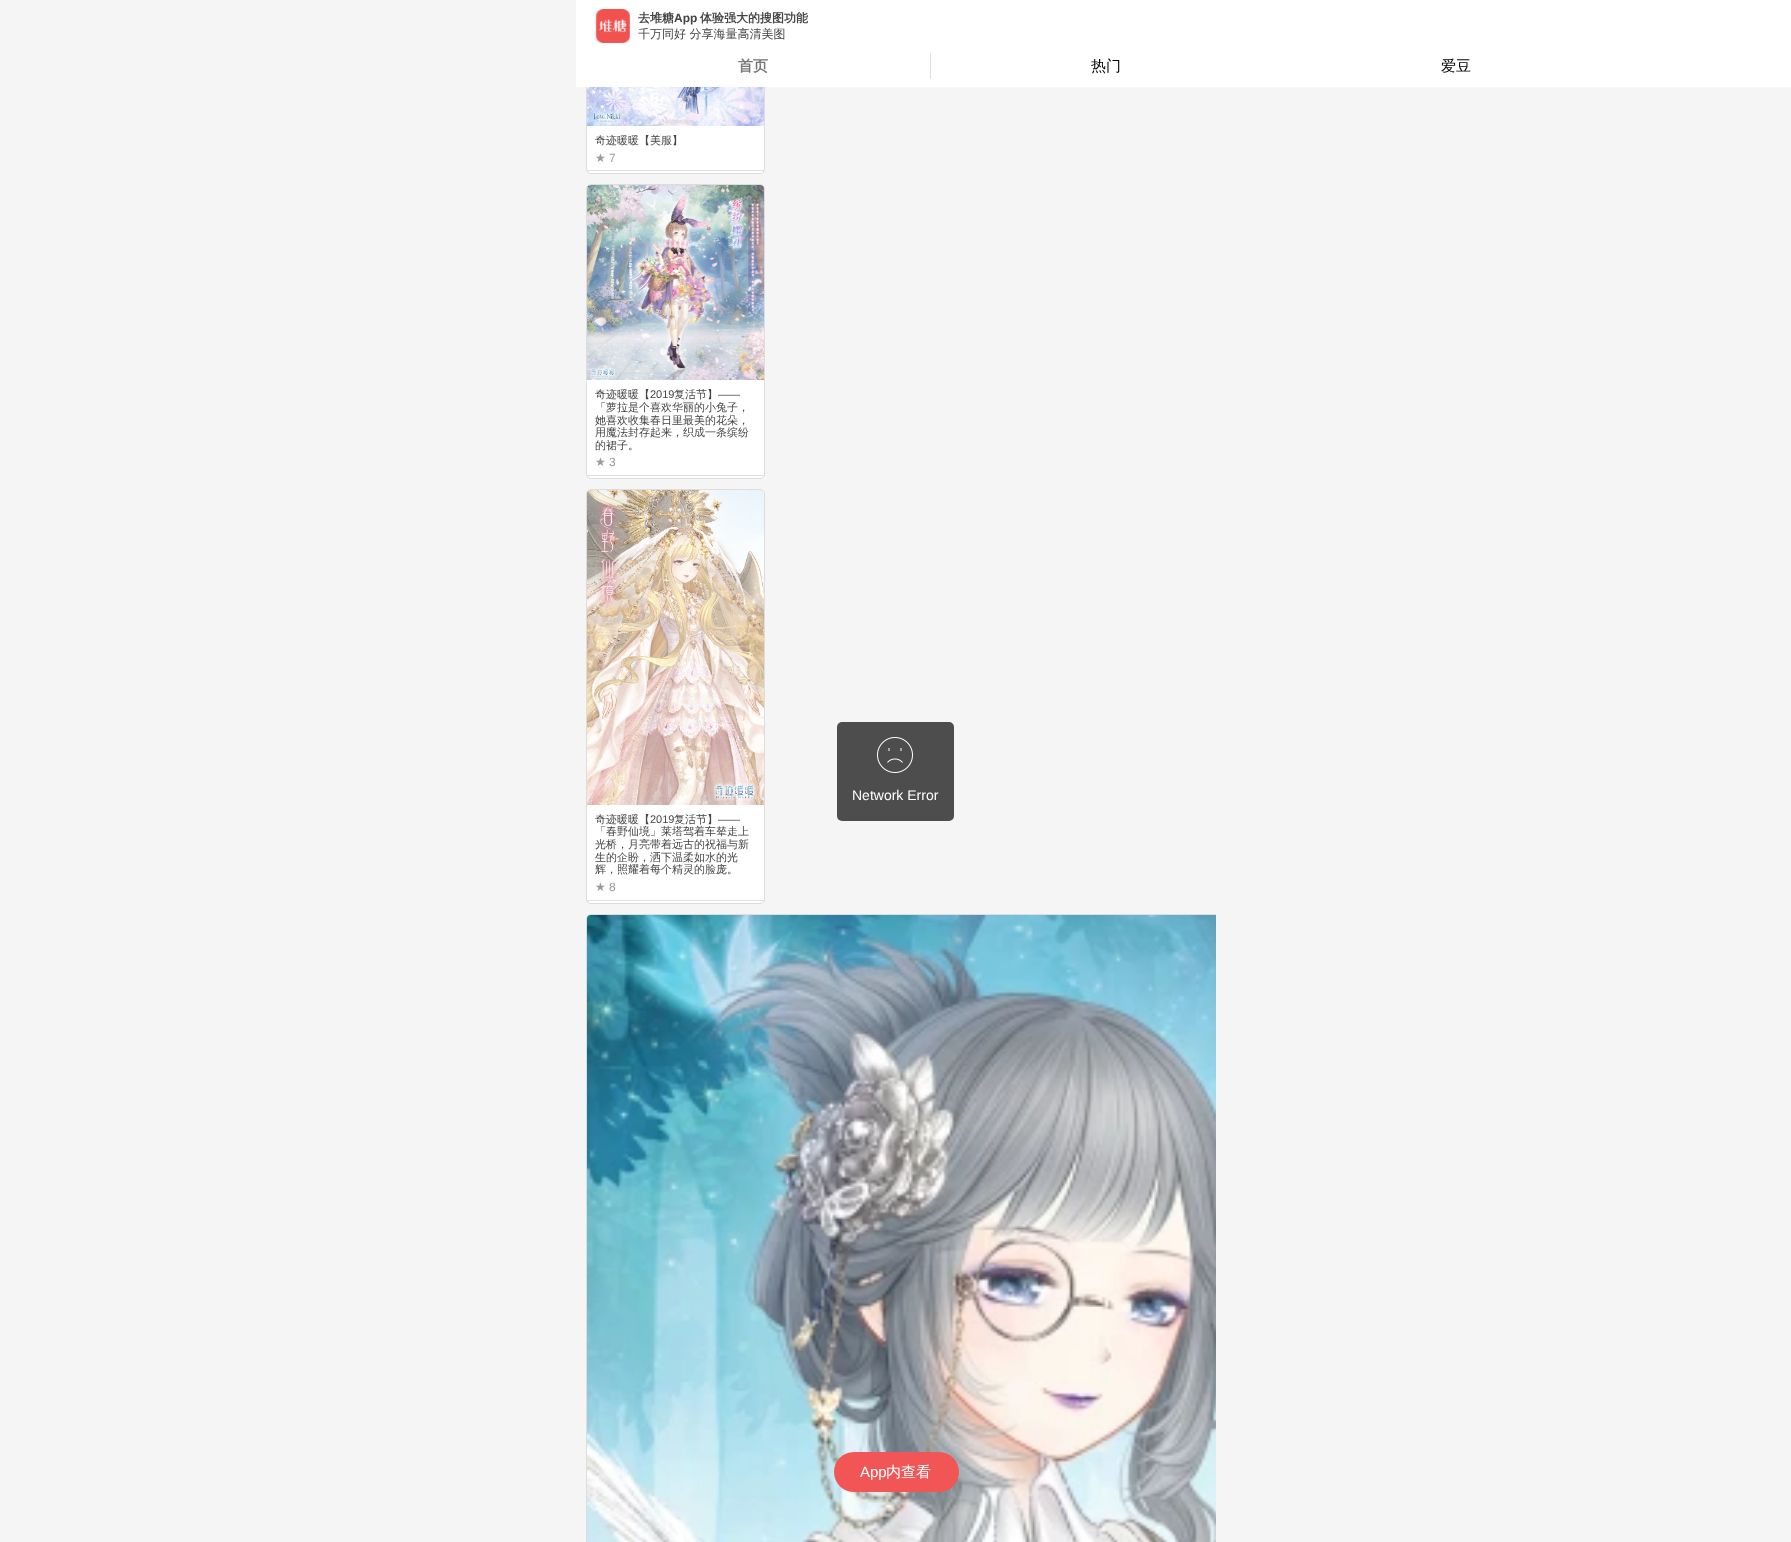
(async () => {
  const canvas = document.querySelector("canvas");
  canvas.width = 1791;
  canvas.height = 1542;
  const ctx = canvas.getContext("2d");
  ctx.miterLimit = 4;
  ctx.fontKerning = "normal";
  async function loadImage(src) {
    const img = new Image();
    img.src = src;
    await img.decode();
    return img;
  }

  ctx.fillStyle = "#f5f5f5";
  ctx.fillRect(0, 0, 1791, 1542);
  ctx.fillStyle = "#ffffff";
  ctx.beginPath();
  ctx.roundRect(586.5, -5.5, 178, 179, 4.5);
  ctx.fill();
  ctx.strokeStyle = "#dddddd";
  ctx.stroke();
  ctx.fillRect(576, 0, 1215, 87);
  ctx.drawImage(await loadImage("img/1.png"), 595, 9, 35, 34);
  ctx.fillStyle = "#e0e0e0";
  ctx.fillRect(930, 53, 1, 26);
  ctx.drawImage(await loadImage("img/2.png"), 587, 87, 177, 39);
  ctx.fillRect(587, 170, 177, 1);
  ctx.fillStyle = "#ffffff";
  ctx.beginPath();
  ctx.roundRect(586.5, 184.5, 178, 294, 4.5);
  ctx.fill();
  ctx.stroke();
  ctx.drawImage(await loadImage("img/3.png"), 587, 185, 177, 195);
  ctx.fillStyle = "#e0e0e0";
  ctx.fillRect(587, 475, 177, 1);
  ctx.fillStyle = "#ffffff";
  ctx.beginPath();
  ctx.roundRect(586.5, 489.5, 178, 414, 4.5);
  ctx.fill();
  ctx.stroke();
  ctx.drawImage(await loadImage("img/4.png"), 587, 490, 177, 315);
  ctx.fillStyle = "#e0e0e0";
  ctx.fillRect(587, 900, 177, 1);
  ctx.save();
  ctx.beginPath();
  ctx.rect(586, 0, 630, 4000);
  ctx.clip();
  ctx.beginPath();
  ctx.roundRect(586.5, 914.5, 878, 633, 4.5);
  ctx.stroke();
  ctx.restore();
  ctx.drawImage(await loadImage("img/5.png"), 587, 915, 629, 627);
  ctx.fillStyle = "#f25555";
  ctx.beginPath();
  ctx.roundRect(834, 1452, 125, 40, 20);
  ctx.fill();
  ctx.fillStyle = "#4d4d4d";
  ctx.beginPath();
  ctx.roundRect(837, 722, 117, 99, 5);
  ctx.fill();
  ctx.drawImage(await loadImage("img/6.png"), 877, 737, 36, 36);
  ctx.font = "bold 12px WenQuanYi Zen Hei";
  ctx.fillStyle = "#444444";
  ctx.fillText("去堆糖", 638, 22);
  ctx.font = "bold 12px Liberation Sans";
  ctx.fillText("App", 674, 22);
  ctx.font = "bold 12px WenQuanYi Zen Hei";
  ctx.fillText("体验强大的搜图功能", 700, 22);
  ctx.font = "500 12px WenQuanYi Zen Hei";
  ctx.fillText("千万同好 分享海量高清美图", 638, 38);
  ctx.font = "bold 15px WenQuanYi Zen Hei";
  ctx.fillStyle = "#777777";
  ctx.fillText("首页", 738, 71);
  ctx.font = "500 15px WenQuanYi Zen Hei";
  ctx.fillStyle = "#000000";
  ctx.fillText("热门", 1091, 71);
  ctx.fillText("爱豆", 1441, 71);
  ctx.font = "500 11px WenQuanYi Zen Hei";
  ctx.fillStyle = "#444444";
  ctx.fillText("奇迹暖暖【美服】", 595, 144);
  ctx.font = "12px DejaVu Sans";
  ctx.fillStyle = "#999999";
  ctx.fillText("★", 595, 162);
  ctx.font = "12px Liberation Sans";
  ctx.fillText("7", 609, 162);
  ctx.font = "500 11px WenQuanYi Zen Hei";
  ctx.fillStyle = "#444444";
  ctx.fillText("奇迹暖暖【", 595, 398);
  ctx.font = "11px Liberation Sans";
  ctx.fillText("2019", 650, 398);
  ctx.font = "500 11px WenQuanYi Zen Hei";
  ctx.fillText("复活节】", 674, 398);
  ctx.font = "11px Liberation Sans";
  ctx.fillText("——", 718, 398);
  ctx.font = "500 11px WenQuanYi Zen Hei";
  for (const [text, x, y] of [
    ["「萝拉是个喜欢华丽的小兔子，", 595, 411],
    ["她喜欢收集春日里最美的花朵，", 595, 424],
    ["用魔法封存起来，织成一条缤纷", 595, 436],
    ["的裙子。", 595, 449],
  ]) {
    ctx.fillText(text, x, y);
  }
  ctx.font = "12px DejaVu Sans";
  ctx.fillStyle = "#999999";
  ctx.fillText("★", 595, 466);
  ctx.font = "12px Liberation Sans";
  ctx.fillText("3", 609, 466);
  ctx.font = "500 11px WenQuanYi Zen Hei";
  ctx.fillStyle = "#444444";
  ctx.fillText("奇迹暖暖【", 595, 823);
  ctx.font = "11px Liberation Sans";
  ctx.fillText("2019", 650, 823);
  ctx.font = "500 11px WenQuanYi Zen Hei";
  ctx.fillText("复活节】", 674, 823);
  ctx.font = "11px Liberation Sans";
  ctx.fillText("——", 718, 823);
  ctx.font = "500 11px WenQuanYi Zen Hei";
  for (const [text, x, y] of [
    ["「春野仙境」莱塔驾着车辇走上", 595, 835],
    ["光桥，月亮带着远古的祝福与新", 595, 848],
    ["生的企盼，洒下温柔如水的光", 595, 861],
    ["辉，照耀着每个精灵的脸庞。", 595, 873],
  ]) {
    ctx.fillText(text, x, y);
  }
  ctx.font = "12px DejaVu Sans";
  ctx.fillStyle = "#999999";
  ctx.fillText("★", 595, 891);
  ctx.font = "12px Liberation Sans";
  ctx.fillText("8", 609, 891);
  ctx.font = "15px Liberation Sans";
  ctx.fillStyle = "#ffffff";
  ctx.fillText("App", 860, 1477);
  ctx.font = "500 15px WenQuanYi Zen Hei";
  ctx.fillText("内查看", 886, 1477);
  ctx.font = "14px Liberation Sans";
  ctx.fillText("Network Error", 852, 800);
})();
